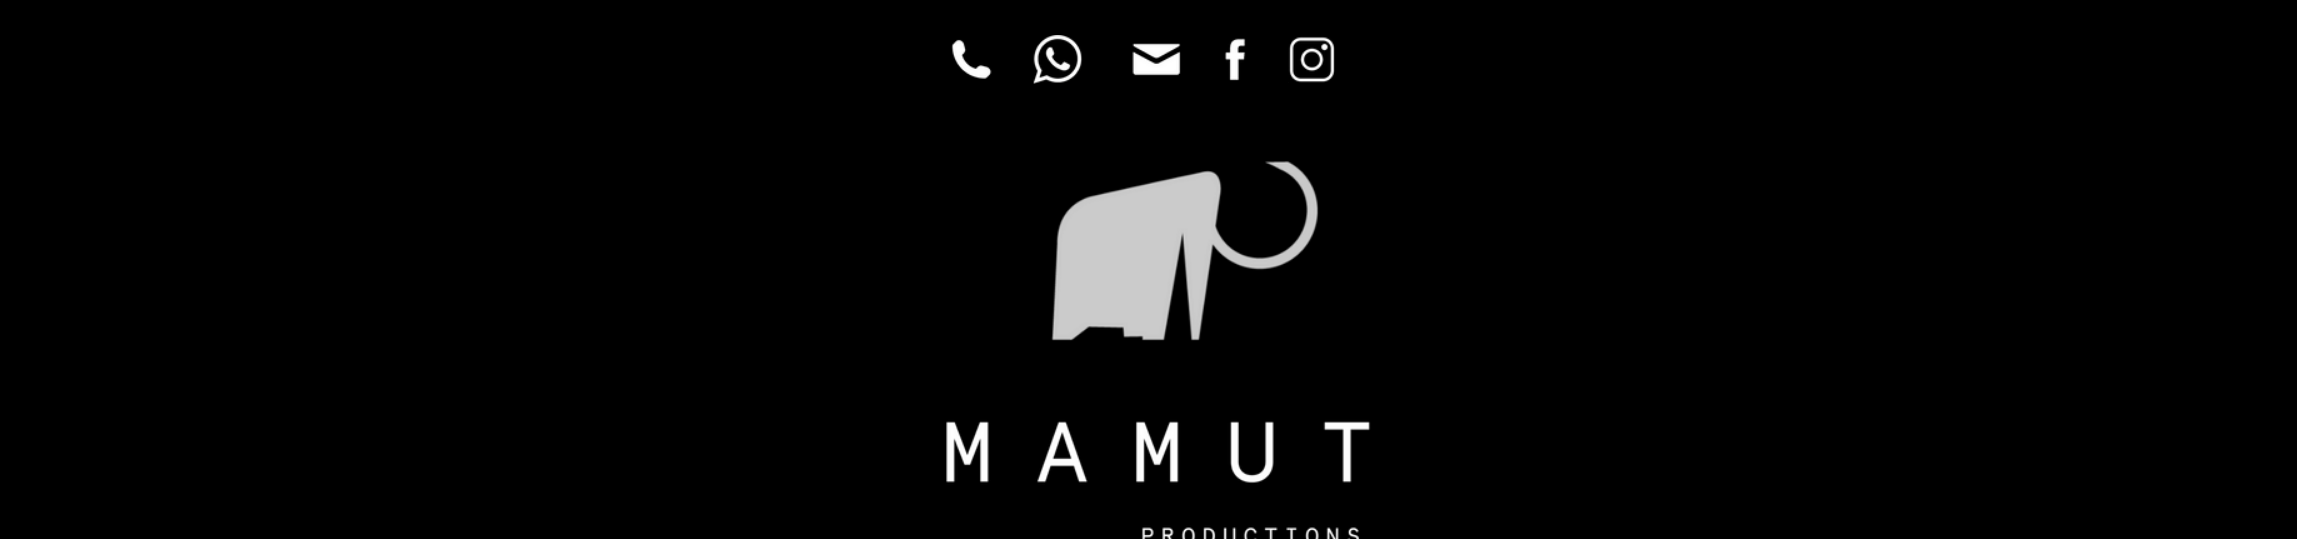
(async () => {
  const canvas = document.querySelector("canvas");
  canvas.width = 2297;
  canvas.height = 539;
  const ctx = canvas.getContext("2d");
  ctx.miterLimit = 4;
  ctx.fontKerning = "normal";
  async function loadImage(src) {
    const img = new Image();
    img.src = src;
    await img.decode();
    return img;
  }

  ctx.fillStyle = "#000000";
  ctx.fillRect(0, 0, 2297, 539);
  ctx.drawImage(await loadImage("img/1.png"), 951, 39, 41, 40);
  ctx.drawImage(await loadImage("img/2.png"), 1033, 35, 50, 49);
  ctx.drawImage(await loadImage("img/3.png"), 1132, 43, 49, 33);
  ctx.drawImage(await loadImage("img/4.png"), 1224, 38, 22, 43);
  ctx.drawImage(await loadImage("img/5.png"), 1288, 36, 47, 47);
  ctx.drawImage(await loadImage("img/6.png"), 946, 161, 425, 378);
})();
